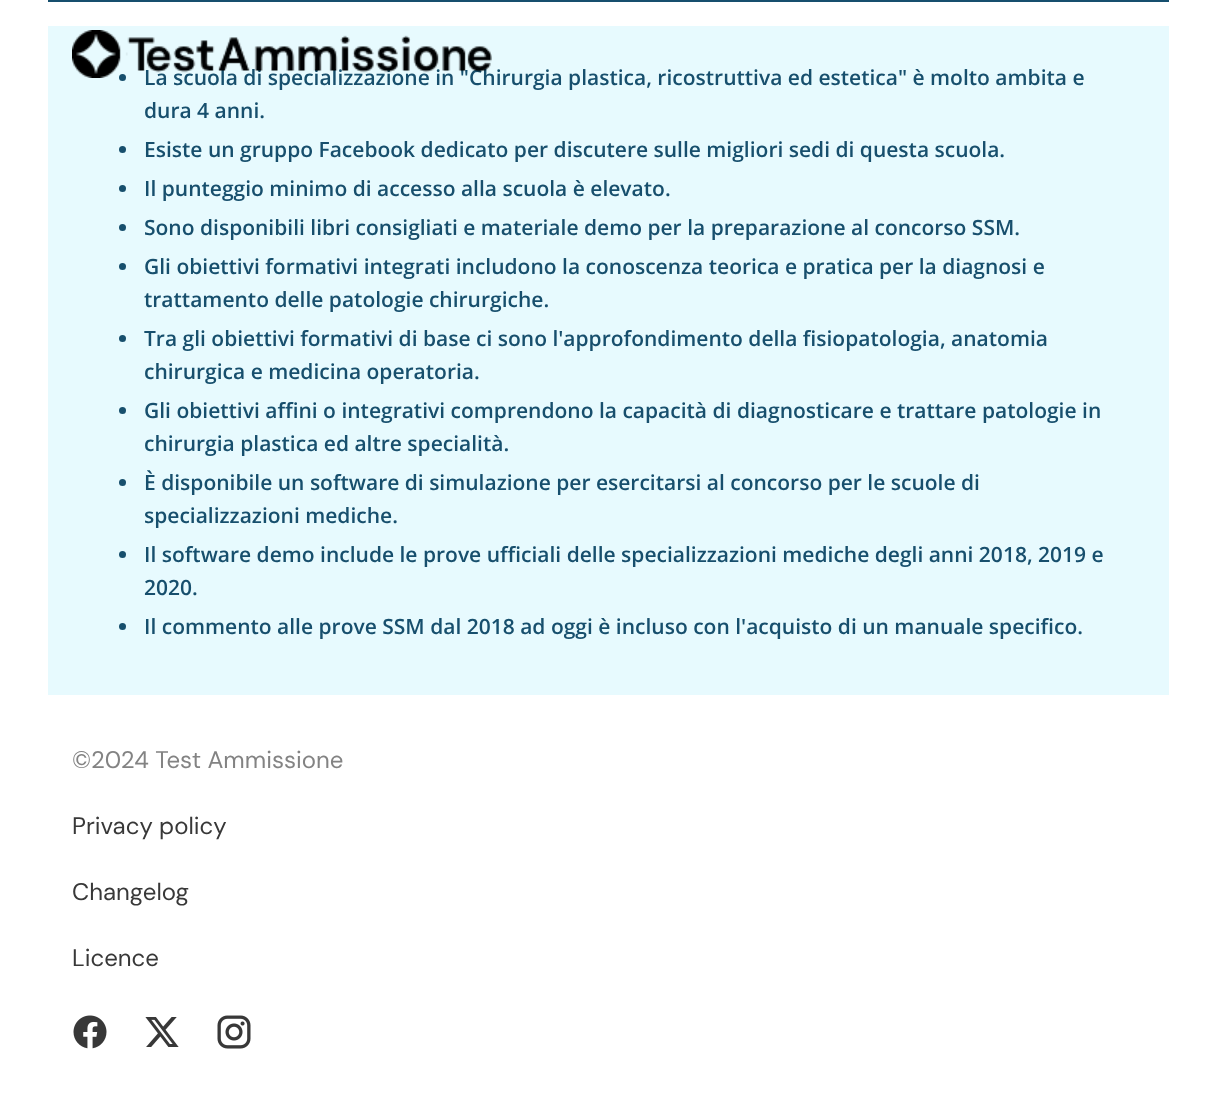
(async () => {
  const canvas = document.querySelector("canvas");
  canvas.width = 1216;
  canvas.height = 1098;
  const ctx = canvas.getContext("2d");
  ctx.miterLimit = 4;
  ctx.fontKerning = "normal";
  async function loadImage(src) {
    const img = new Image();
    img.src = src;
    await img.decode();
    return img;
  }

  ctx.fillStyle = "#ffffff";
  ctx.fillRect(0, 0, 1216, 1098);
  ctx.fillStyle = "#164f6e";
  ctx.fillRect(48, 0, 1121, 2);
  ctx.fillStyle = "#e7fafe";
  ctx.fillRect(48, 26, 1121, 669);
  ctx.fillStyle = "#174f6d";
  ctx.beginPath();
  ctx.arc(122.5, 77.5, 3.5, 0, Math.PI * 2);
  ctx.fill();
  ctx.beginPath();
  ctx.arc(122.5, 149.5, 3.5, 0, Math.PI * 2);
  ctx.fill();
  ctx.beginPath();
  ctx.arc(122.5, 188.5, 3.5, 0, Math.PI * 2);
  ctx.fill();
  ctx.beginPath();
  ctx.arc(122.5, 227.5, 3.5, 0, Math.PI * 2);
  ctx.fill();
  ctx.beginPath();
  ctx.arc(122.5, 266.5, 3.5, 0, Math.PI * 2);
  ctx.fill();
  ctx.beginPath();
  ctx.arc(122.5, 338.5, 3.5, 0, Math.PI * 2);
  ctx.fill();
  ctx.beginPath();
  ctx.arc(122.5, 410.5, 3.5, 0, Math.PI * 2);
  ctx.fill();
  ctx.beginPath();
  ctx.arc(122.5, 482.5, 3.5, 0, Math.PI * 2);
  ctx.fill();
  ctx.beginPath();
  ctx.arc(122.5, 554.5, 3.5, 0, Math.PI * 2);
  ctx.fill();
  ctx.beginPath();
  ctx.arc(122.5, 626.5, 3.5, 0, Math.PI * 2);
  ctx.fill();
  ctx.drawImage(await loadImage("img/2.png"), 73, 1015, 34, 34);
  ctx.drawImage(await loadImage("img/3.png"), 145, 1017, 34, 30);
  ctx.drawImage(await loadImage("img/4.png"), 217, 1015, 34, 34);
  ctx.font = "600 21px Open Sans";
  ctx.fillText("La scuola di specializzazione in \"Chirurgia plastica, ricostruttiva ed estetica\" è molto ambita e", 144, 85);
  ctx.drawImage(await loadImage("img/1.png"), 72, 30, 420, 48);
  for (const [text, x, y] of [
    ["dura 4 anni.", 144, 118],
    ["Esiste un gruppo Facebook dedicato per discutere sulle migliori sedi di questa scuola.", 144, 157],
    ["Il punteggio minimo di accesso alla scuola è elevato.", 144, 196],
    ["Sono disponibili libri consigliati e materiale demo per la preparazione al concorso SSM.", 144, 235],
    ["Gli obiettivi formativi integrati includono la conoscenza teorica e pratica per la diagnosi e", 144, 274],
    ["trattamento delle patologie chirurgiche.", 144, 307],
    ["Tra gli obiettivi formativi di base ci sono l'approfondimento della fisiopatologia, anatomia", 144, 346],
    ["chirurgica e medicina operatoria.", 144, 379],
    ["Gli obiettivi affini o integrativi comprendono la capacità di diagnosticare e trattare patologie in", 144, 418],
    ["chirurgia plastica ed altre specialità.", 144, 451],
    ["È disponibile un software di simulazione per esercitarsi al concorso per le scuole di", 144, 490],
    ["specializzazioni mediche.", 144, 523],
    ["Il software demo include le prove ufficiali delle specializzazioni mediche degli anni 2018, 2019 e", 144, 562],
    ["2020.", 144, 595],
    ["Il commento alle prove SSM dal 2018 ad oggi è incluso con l'acquisto di un manuale specifico.", 144, 634],
  ]) {
    ctx.fillText(text, x, y);
  }
  ctx.font = "24px DM Sans";
  ctx.fillStyle = "#838383";
  ctx.fillText("©2024 Test Ammissione", 72, 768);
  ctx.fillStyle = "#383838";
  for (const [text, x, y] of [
    ["Privacy policy", 72, 834],
    ["Changelog", 72, 900],
    ["Licence", 72, 966],
  ]) {
    ctx.fillText(text, x, y);
  }
})();
